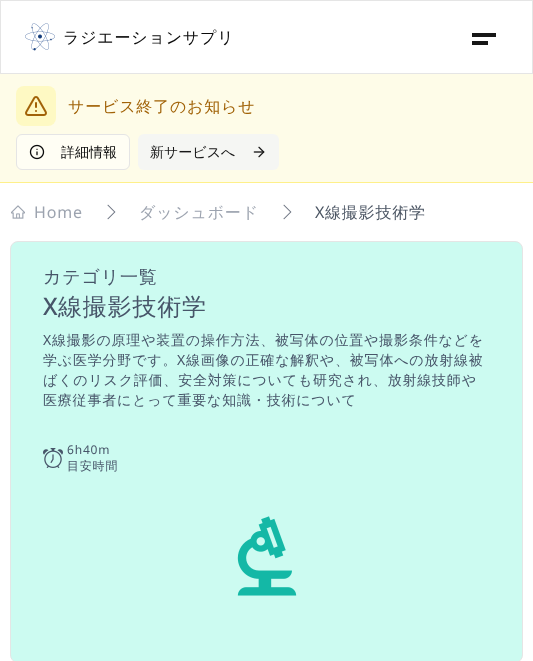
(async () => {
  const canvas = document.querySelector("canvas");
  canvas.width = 533;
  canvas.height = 661;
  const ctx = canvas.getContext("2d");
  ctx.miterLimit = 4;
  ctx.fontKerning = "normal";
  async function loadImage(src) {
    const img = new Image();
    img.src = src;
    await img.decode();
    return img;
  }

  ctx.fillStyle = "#ffffff";
  ctx.fillRect(0, 0, 533, 661);
  ctx.strokeStyle = "#e5e5e5";
  ctx.strokeRect(0.5, 0.5, 532, 73);
  ctx.drawImage(await loadImage("img/1.png"), 25, 23, 30, 28);
  for (const [x, y, w, h, color] of [
    [472, 33, 24, 4, "#171717"],
    [472, 41, 16, 4, "#171717"],
    [0, 74, 533, 108, "#fefce8"],
    [0, 182, 533, 1, "#fef08a"],
  ]) {
    ctx.fillStyle = color;
    ctx.fillRect(x, y, w, h);
  }
  ctx.fillStyle = "#fef9c3";
  ctx.beginPath();
  ctx.roundRect(16, 86, 40, 40, 8);
  ctx.fill();
  ctx.drawImage(await loadImage("img/2.png"), 25, 96, 22, 20);
  ctx.fillStyle = "#fffef4";
  ctx.beginPath();
  ctx.roundRect(16.5, 134.5, 113, 35, 5.5);
  ctx.fill();
  ctx.stroke();
  ctx.drawImage(await loadImage("img/3.png"), 29, 144, 16, 16);
  ctx.fillStyle = "#f5f6f3";
  ctx.beginPath();
  ctx.roundRect(138, 134, 141, 36, 6);
  ctx.fill();
  ctx.drawImage(await loadImage("img/4.png"), 253, 146, 12, 12);
  ctx.drawImage(await loadImage("img/5.png"), 11, 205, 14, 14);
  ctx.drawImage(await loadImage("img/6.png"), 107, 204, 9, 16);
  ctx.drawImage(await loadImage("img/6.png"), 283, 204, 9, 16);
  ctx.fillStyle = "#ccfbf1";
  ctx.beginPath();
  ctx.roundRect(10.5, 241.5, 512, 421, 7.5);
  ctx.fill();
  ctx.stroke();
  ctx.drawImage(await loadImage("img/7.png"), 43, 448, 20, 20);
  ctx.drawImage(await loadImage("img/8.png"), 237, 516, 60, 80);
  ctx.letterSpacing = "0.8px";
  ctx.font = "500 16px WenQuanYi Zen Hei";
  ctx.fillStyle = "#0a0a0a";
  ctx.fillText("ラジエーションサプリ", 63, 43);
  ctx.fillStyle = "#a16207";
  ctx.fillText("サービス終了のお知らせ", 68, 112);
  ctx.letterSpacing = "0px";
  ctx.font = "500 14px WenQuanYi Zen Hei";
  ctx.fillStyle = "#0a0a0a";
  ctx.fillText("詳細情報", 61, 157);
  ctx.fillStyle = "#171717";
  ctx.fillText("新サービスへ", 150, 157);
  ctx.letterSpacing = "0.8px";
  ctx.font = "16px Noto Sans";
  ctx.fillStyle = "#9ca3af";
  ctx.fillText("Home", 34, 218);
  ctx.font = "500 16px WenQuanYi Zen Hei";
  ctx.fillText("ダッシュボード", 139, 218);
  ctx.font = "16px Noto Sans";
  ctx.fillStyle = "#4b5563";
  ctx.fillText("X", 315, 218);
  ctx.font = "500 16px WenQuanYi Zen Hei";
  ctx.fillText("線撮影技術学", 325, 218);
  ctx.font = "500 18px WenQuanYi Zen Hei";
  ctx.fillStyle = "#475569";
  ctx.fillText("カテゴリ一覧", 43, 283);
  ctx.font = "500 24px Noto Sans";
  ctx.fillText("X", 43, 315);
  ctx.font = "500 24px WenQuanYi Zen Hei";
  ctx.fillText("線撮影技術学", 58, 315);
  ctx.font = "14px Noto Sans";
  ctx.fillText("X", 43, 345);
  ctx.font = "500 14px WenQuanYi Zen Hei";
  ctx.fillText("線撮影の原理や装置の操作方法、被写体の位置や撮影条件などを", 52, 345);
  ctx.fillText("学ぶ医学分野です。", 43, 365);
  ctx.font = "14px Noto Sans";
  ctx.fillText("X", 177, 365);
  ctx.font = "500 14px WenQuanYi Zen Hei";
  for (const [text, x, y] of [
    ["線画像の正確な解釈や、被写体への放射線被", 186, 365],
    ["ばくのリスク評価、安全対策についても研究され、放射線技師や", 43, 385],
    ["医療従事者にとって重要な知識・技術について", 43, 405],
  ]) {
    ctx.fillText(text, x, y);
  }
  ctx.font = "12px Noto Sans";
  ctx.fillText("6h40m", 67, 454);
  ctx.font = "500 12px WenQuanYi Zen Hei";
  ctx.fillText("目安時間", 67, 470);
})();
